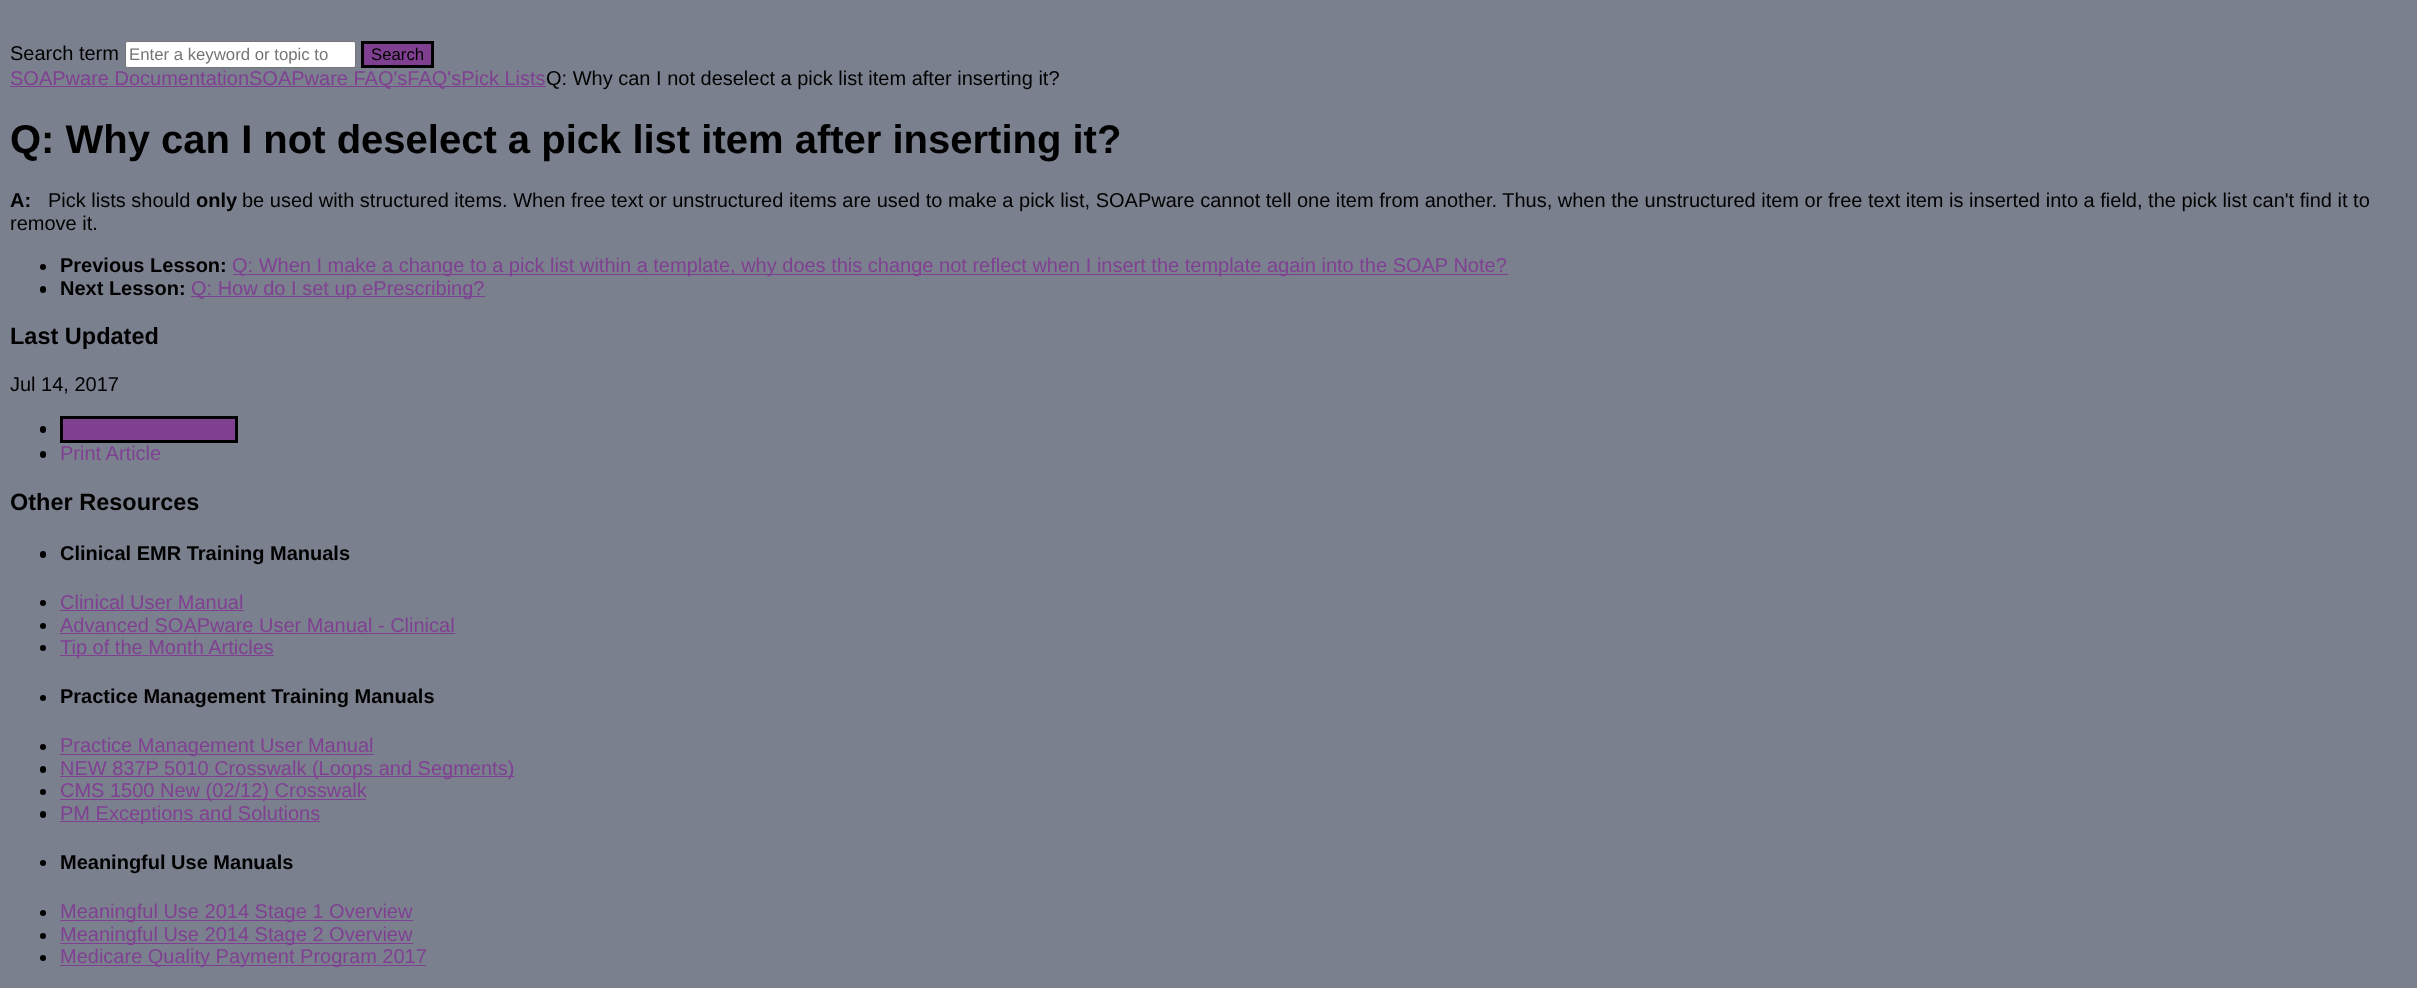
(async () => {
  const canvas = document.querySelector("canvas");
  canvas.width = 2417;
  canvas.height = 988;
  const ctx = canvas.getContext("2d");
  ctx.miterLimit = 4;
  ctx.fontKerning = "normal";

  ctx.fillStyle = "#7b808e";
  ctx.fillRect(0, 0, 2417, 988);
  ctx.fillStyle = "#ffffff";
  ctx.beginPath();
  ctx.roundRect(125.5, 41.5, 230, 26, 2);
  ctx.fill();
  ctx.strokeStyle = "#767676";
  ctx.stroke();
  ctx.fillStyle = "#804092";
  ctx.beginPath();
  ctx.rect(362.5, 42.5, 70, 24);
  ctx.fill();
  ctx.strokeStyle = "#000000";
  ctx.lineWidth = 3;
  ctx.stroke();
  ctx.fillRect(10, 86, 536, 1);
  ctx.fillStyle = "#000000";
  ctx.beginPath();
  ctx.arc(43, 267, 3, 0, Math.PI * 2);
  ctx.fill();
  ctx.fillStyle = "#804092";
  ctx.fillRect(233, 274, 1275, 1);
  ctx.fillStyle = "#000000";
  ctx.beginPath();
  ctx.roundRect(40, 286, 6, 7, 3);
  ctx.fill();
  ctx.fillStyle = "#804092";
  ctx.fillRect(191, 296, 294, 1);
  ctx.fillStyle = "#000000";
  ctx.beginPath();
  ctx.roundRect(40, 426, 6, 7, 3);
  ctx.fill();
  ctx.fillStyle = "#804092";
  ctx.beginPath();
  ctx.rect(61.5, 417.5, 175, 24);
  ctx.fill();
  ctx.stroke();
  ctx.fillStyle = "#000000";
  ctx.beginPath();
  ctx.roundRect(40, 451, 6, 7, 3);
  ctx.fill();
  ctx.beginPath();
  ctx.roundRect(40, 551, 6, 7, 3);
  ctx.fill();
  ctx.beginPath();
  ctx.arc(43, 603, 3, 0, Math.PI * 2);
  ctx.fill();
  ctx.fillStyle = "#804092";
  ctx.fillRect(60, 610, 184, 1);
  ctx.fillStyle = "#000000";
  ctx.beginPath();
  ctx.arc(43, 626, 3, 0, Math.PI * 2);
  ctx.fill();
  ctx.fillStyle = "#804092";
  ctx.fillRect(60, 633, 395, 1);
  ctx.fillStyle = "#000000";
  ctx.beginPath();
  ctx.arc(43, 648, 3, 0, Math.PI * 2);
  ctx.fill();
  ctx.fillStyle = "#804092";
  ctx.fillRect(60, 655, 214, 1);
  ctx.fillStyle = "#000000";
  ctx.beginPath();
  ctx.arc(43, 698, 3, 0, Math.PI * 2);
  ctx.fill();
  ctx.beginPath();
  ctx.arc(43, 747, 3, 0, Math.PI * 2);
  ctx.fill();
  ctx.fillStyle = "#804092";
  ctx.fillRect(60, 754, 314, 1);
  ctx.fillStyle = "#000000";
  ctx.beginPath();
  ctx.roundRect(40, 766, 6, 7, 3);
  ctx.fill();
  ctx.fillStyle = "#804092";
  ctx.fillRect(60, 776, 454, 1);
  ctx.fillStyle = "#000000";
  ctx.beginPath();
  ctx.arc(43, 792, 3, 0, Math.PI * 2);
  ctx.fill();
  ctx.fillStyle = "#804092";
  ctx.fillRect(60, 799, 306, 1);
  ctx.fillStyle = "#000000";
  ctx.beginPath();
  ctx.roundRect(40, 811, 6, 7, 3);
  ctx.fill();
  ctx.fillStyle = "#804092";
  ctx.fillRect(60, 821, 260, 1);
  ctx.fillStyle = "#000000";
  ctx.beginPath();
  ctx.arc(43, 863, 3, 0, Math.PI * 2);
  ctx.fill();
  ctx.beginPath();
  ctx.arc(43, 913, 3, 0, Math.PI * 2);
  ctx.fill();
  ctx.fillStyle = "#804092";
  ctx.fillRect(60, 920, 353, 1);
  ctx.fillStyle = "#000000";
  ctx.beginPath();
  ctx.arc(43, 936, 3, 0, Math.PI * 2);
  ctx.fill();
  ctx.fillStyle = "#804092";
  ctx.fillRect(60, 943, 353, 1);
  ctx.fillStyle = "#000000";
  ctx.beginPath();
  ctx.arc(43, 958, 3, 0, Math.PI * 2);
  ctx.fill();
  ctx.fillStyle = "#804092";
  ctx.fillRect(60, 965, 366, 1);
  ctx.font = "20px Liberation Sans";
  ctx.fillStyle = "#000000";
  ctx.fillText("Search term", 10, 60);
  ctx.font = "16.75px Liberation Sans";
  ctx.fillStyle = "#757575";
  ctx.fillText("Enter a keyword or topic to", 129, 60);
  ctx.fillStyle = "#000000";
  ctx.fillText("Search", 371, 60);
  ctx.font = "20px Liberation Sans";
  ctx.fillStyle = "#804092";
  ctx.fillText("SOAPware DocumentationSOAPware FAQ'sFAQ'sPick Lists", 10, 85);
  ctx.fillStyle = "#000000";
  ctx.fillText("Q: Why can I not deselect a pick list item after inserting it?", 546, 85);
  ctx.font = "bold 40px Liberation Sans";
  ctx.fillText("Q: Why can I not deselect a pick list item after inserting it?", 10, 153);
  ctx.font = "bold 20px Liberation Sans";
  ctx.fillText("A:", 10, 207);
  ctx.font = "20px Liberation Sans";
  ctx.fillText("Pick lists should", 48, 207);
  ctx.font = "bold 20px Liberation Sans";
  ctx.fillText("only", 196, 207);
  ctx.font = "20px Liberation Sans";
  ctx.fillText("be used with structured items. When free text or unstructured items are used to make a pick list, SOAPware cannot tell one item from another. Thus, when the unstructured item or free text item is inserted into a field, the pick list can't find it to", 242, 207);
  ctx.fillText("remove it.", 10, 230);
  ctx.font = "bold 20px Liberation Sans";
  ctx.fillText("Previous Lesson:", 60, 272);
  ctx.font = "20px Liberation Sans";
  ctx.fillStyle = "#804092";
  ctx.fillText("Q: When I make a change to a pick list within a template, why does this change not reflect when I insert the template again into the SOAP Note?", 232, 272);
  ctx.font = "bold 20px Liberation Sans";
  ctx.fillStyle = "#000000";
  ctx.fillText("Next Lesson:", 60, 295);
  ctx.font = "20px Liberation Sans";
  ctx.fillStyle = "#804092";
  ctx.fillText("Q: How do I set up ePrescribing?", 191, 295);
  ctx.font = "bold 23.5px Liberation Sans";
  ctx.fillStyle = "#000000";
  ctx.fillText("Last Updated", 10, 344);
  ctx.font = "20px Liberation Sans";
  ctx.fillText("Jul 14, 2017", 10, 391);
  ctx.fillStyle = "#804092";
  ctx.fillText("Print Article", 60, 460);
  ctx.font = "bold 23.5px Liberation Sans";
  ctx.fillStyle = "#000000";
  ctx.fillText("Other Resources", 10, 510);
  ctx.font = "bold 20px Liberation Sans";
  ctx.fillText("Clinical EMR Training Manuals", 60, 560);
  ctx.font = "20px Liberation Sans";
  ctx.fillStyle = "#804092";
  for (const [text, x, y] of [
    ["Clinical User Manual", 60, 609],
    ["Advanced SOAPware User Manual - Clinical", 60, 632],
    ["Tip of the Month Articles", 60, 654],
  ]) {
    ctx.fillText(text, x, y);
  }
  ctx.font = "bold 20px Liberation Sans";
  ctx.fillStyle = "#000000";
  ctx.fillText("Practice Management Training Manuals", 60, 703);
  ctx.font = "20px Liberation Sans";
  ctx.fillStyle = "#804092";
  for (const [text, x, y] of [
    ["Practice Management User Manual", 60, 752],
    ["NEW 837P 5010 Crosswalk (Loops and Segments)", 60, 775],
    ["CMS 1500 New (02/12) Crosswalk", 60, 797],
    ["PM Exceptions and Solutions", 60, 820],
  ]) {
    ctx.fillText(text, x, y);
  }
  ctx.font = "bold 20px Liberation Sans";
  ctx.fillStyle = "#000000";
  ctx.fillText("Meaningful Use Manuals", 60, 869);
  ctx.font = "20px Liberation Sans";
  ctx.fillStyle = "#804092";
  for (const [text, x, y] of [
    ["Meaningful Use 2014 Stage 1 Overview", 60, 918],
    ["Meaningful Use 2014 Stage 2 Overview", 60, 941],
    ["Medicare Quality Payment Program 2017", 60, 963],
  ]) {
    ctx.fillText(text, x, y);
  }
})();
